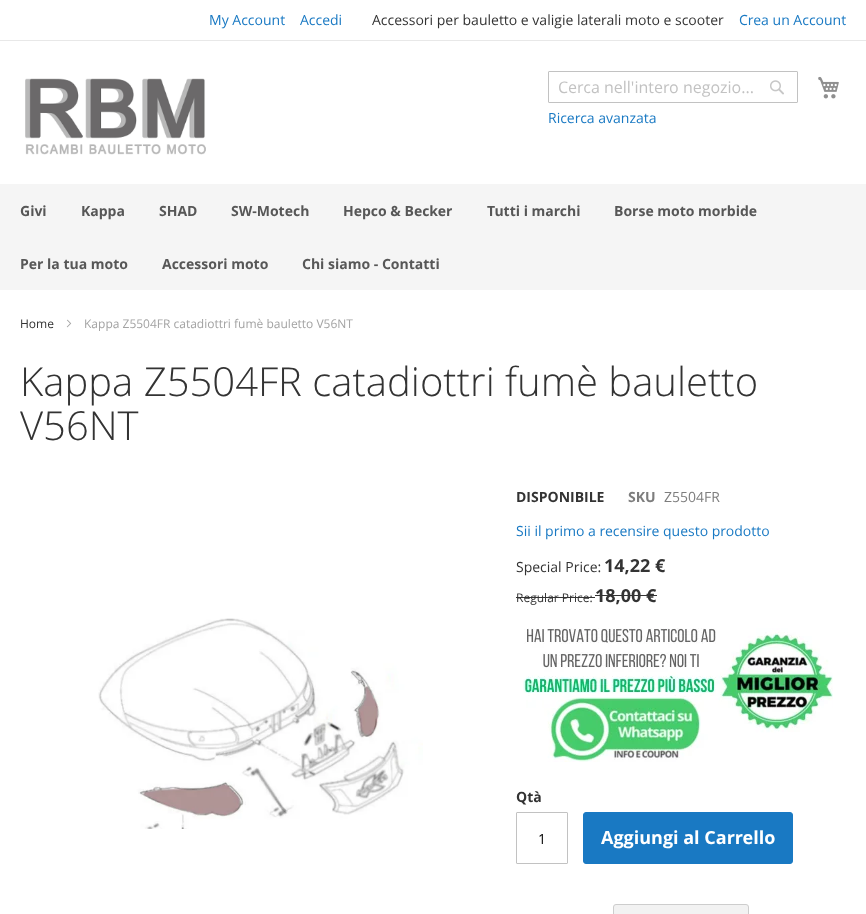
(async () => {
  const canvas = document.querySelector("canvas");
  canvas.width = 866;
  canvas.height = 914;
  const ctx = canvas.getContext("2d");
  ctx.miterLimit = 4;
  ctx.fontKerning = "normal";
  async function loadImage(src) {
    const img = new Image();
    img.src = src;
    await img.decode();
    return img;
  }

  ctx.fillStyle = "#ffffff";
  ctx.fillRect(0, 0, 866, 914);
  ctx.fillStyle = "#e8e8e8";
  ctx.fillRect(0, 40, 866, 1);
  ctx.drawImage(await loadImage("img/1.png"), 25, 78, 181, 77);
  ctx.beginPath();
  ctx.roundRect(548.5, 71.5, 249, 31, 0.5);
  ctx.strokeStyle = "#c2c2c2";
  ctx.stroke();
  ctx.drawImage(await loadImage("img/2.png"), 770, 80, 14, 15);
  ctx.drawImage(await loadImage("img/3.png"), 818, 76, 21, 23);
  ctx.fillStyle = "#f5f5f5";
  ctx.fillRect(0, 184, 866, 106);
  ctx.drawImage(await loadImage("img/4.png"), 66, 319, 6, 9);
  ctx.drawImage(await loadImage("img/5.png"), 98, 618, 325, 211);
  ctx.fillStyle = "#333333";
  ctx.fillRect(516, 597, 79, 1);
  ctx.fillRect(595, 595, 62, 1);
  ctx.drawImage(await loadImage("img/6.png"), 523, 628, 310, 134);
  ctx.beginPath();
  ctx.roundRect(516.5, 812.5, 51, 51, 0.5);
  ctx.stroke();
  ctx.fillStyle = "#1979c3";
  ctx.beginPath();
  ctx.roundRect(583.5, 812.5, 209, 51, 2.5);
  ctx.fill();
  ctx.strokeStyle = "#1979c3";
  ctx.stroke();
  ctx.fillStyle = "#f2f2f2";
  ctx.beginPath();
  ctx.roundRect(613.5, 904.5, 135, 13, 2.5);
  ctx.fill();
  ctx.strokeStyle = "#cdcdcd";
  ctx.stroke();
  ctx.font = "14px Open Sans";
  ctx.fillStyle = "#1979c3";
  ctx.fillText("My Account", 209, 25);
  ctx.fillText("Accedi", 300, 25);
  ctx.fillStyle = "#333333";
  ctx.fillText("Accessori per bauletto e valigie laterali moto e scooter", 372, 25);
  ctx.fillStyle = "#1979c3";
  ctx.fillText("Crea un Account", 739, 25);
  ctx.font = "16px Open Sans";
  ctx.fillStyle = "#c2c2c2";
  ctx.fillText("Cerca nell'intero negozio...", 558, 93);
  ctx.font = "14px Open Sans";
  ctx.fillStyle = "#1979c3";
  ctx.fillText("Ricerca avanzata", 548, 123);
  ctx.font = "bold 14px Open Sans";
  ctx.fillStyle = "#575757";
  for (const [text, x, y] of [
    ["Givi", 20, 216],
    ["Kappa", 81, 216],
    ["SHAD", 159, 216],
    ["SW-Motech", 231, 216],
    ["Hepco & Becker", 343, 216],
    ["Tutti i marchi", 487, 216],
    ["Borse moto morbide", 614, 216],
    ["Per la tua moto", 20, 269],
    ["Accessori moto", 162, 269],
    ["Chi siamo - Contatti", 302, 269],
  ]) {
    ctx.fillText(text, x, y);
  }
  ctx.font = "12px Open Sans";
  ctx.fillStyle = "#333333";
  ctx.fillText("Home", 20, 328);
  ctx.fillStyle = "#a3a3a3";
  ctx.fillText("Kappa Z5504FR catadiottri fumè bauletto V56NT", 84, 328);
  ctx.font = "300 40px Open Sans";
  ctx.fillStyle = "#333333";
  ctx.fillText("Kappa Z5504FR catadiottri fumè bauletto", 20, 396);
  ctx.fillText("V56NT", 20, 440);
  ctx.font = "bold 14px Open Sans";
  ctx.fillText("DISPONIBILE", 516, 502);
  ctx.fillStyle = "#7d7d7d";
  ctx.fillText("SKU", 628, 502);
  ctx.font = "14px Open Sans";
  ctx.fillText("Z5504FR", 664, 502);
  ctx.fillStyle = "#1979c3";
  ctx.fillText("Sii il primo a recensire questo prodotto", 516, 536);
  ctx.fillStyle = "#333333";
  ctx.fillText("Special Price:", 516, 572);
  ctx.font = "bold 18px Open Sans";
  ctx.fillText("14,22 €", 604, 572);
  ctx.font = "12px Open Sans";
  ctx.fillText("Regular Price:", 516, 602);
  ctx.font = "bold 18px Open Sans";
  ctx.fillText("18,00 €", 595, 602);
  ctx.font = "bold 14px Open Sans";
  ctx.fillText("Qtà", 516, 802);
  ctx.font = "14px Open Sans";
  ctx.fillStyle = "#000000";
  ctx.fillText("1", 538, 844);
  ctx.font = "bold 18px Open Sans";
  ctx.fillStyle = "#ffffff";
  ctx.fillText("Aggiungi al Carrello", 601, 844);
})();
